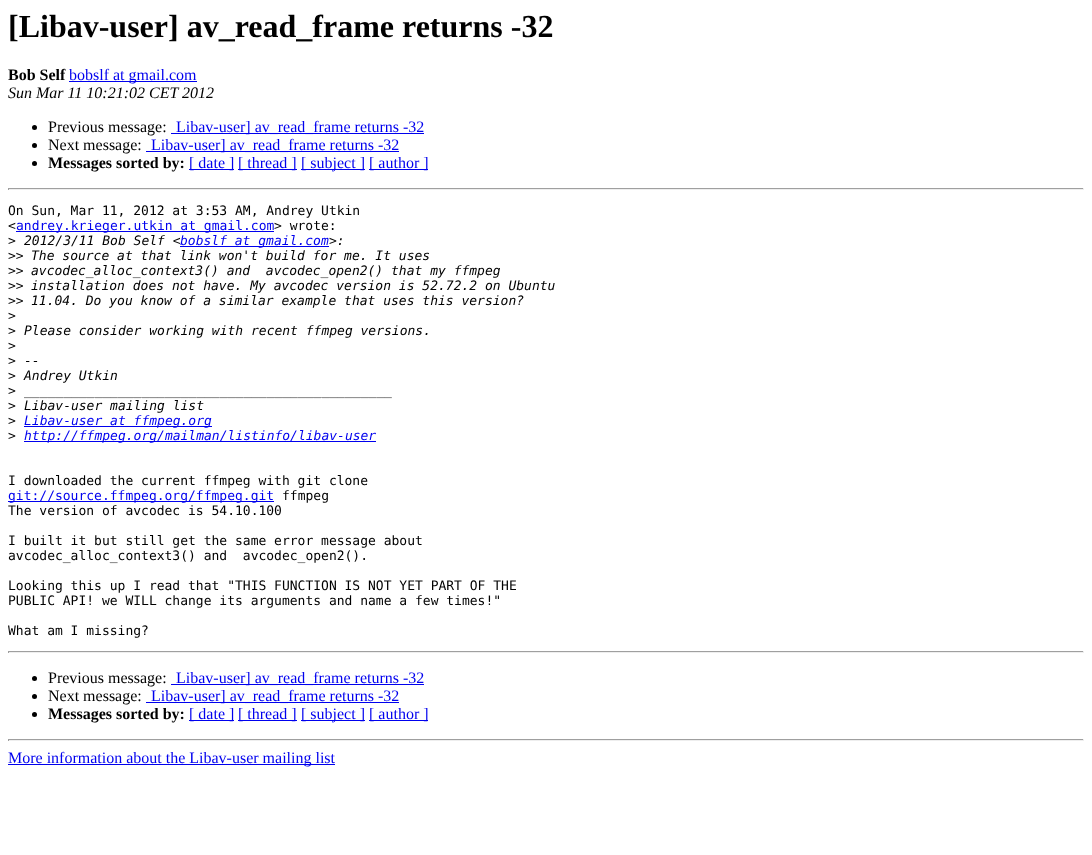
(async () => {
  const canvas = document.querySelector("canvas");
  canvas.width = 1092;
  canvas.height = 855;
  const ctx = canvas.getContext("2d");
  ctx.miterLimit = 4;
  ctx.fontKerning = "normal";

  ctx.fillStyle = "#ffffff";
  ctx.fillRect(0, 0, 1092, 855);
  ctx.fillStyle = "#0000ee";
  ctx.fillRect(69, 81, 128, 1);
  ctx.fillStyle = "#000000";
  ctx.beginPath();
  ctx.arc(34.5, 127.5, 2.5, 0, Math.PI * 2);
  ctx.fill();
  ctx.fillStyle = "#0000ee";
  ctx.fillRect(171, 133, 253, 1);
  ctx.fillStyle = "#000000";
  ctx.beginPath();
  ctx.arc(34.5, 145.5, 2.5, 0, Math.PI * 2);
  ctx.fill();
  ctx.fillStyle = "#0000ee";
  ctx.fillRect(146, 151, 253, 1);
  ctx.fillStyle = "#000000";
  ctx.beginPath();
  ctx.arc(34.5, 163.5, 2.5, 0, Math.PI * 2);
  ctx.fill();
  for (const [x, y, w, h, color] of [
    [189, 169, 45, 1, "#0000ee"],
    [238, 169, 59, 1, "#0000ee"],
    [301, 169, 64, 1, "#0000ee"],
    [369, 169, 59, 1, "#0000ee"],
    [8, 188, 1076, 1, "#9f9f9f"],
    [1083, 188, 1, 2, "#eeeeee"],
    [8, 189, 1076, 1, "#eeeeee"],
    [8, 188, 1, 2, "#9f9f9f"],
    [16, 231, 258, 1, "#0000ee"],
    [180, 246, 149, 1, "#0000ee"],
    [24, 426, 188, 1, "#0000ee"],
    [24, 441, 352, 1, "#0000ee"],
    [8, 501, 266, 1, "#0000ee"],
    [8, 651, 1076, 1, "#9f9f9f"],
    [1083, 651, 1, 2, "#eeeeee"],
    [8, 652, 1076, 1, "#eeeeee"],
    [8, 651, 1, 2, "#9f9f9f"],
  ]) {
    ctx.fillStyle = color;
    ctx.fillRect(x, y, w, h);
  }
  ctx.fillStyle = "#000000";
  ctx.beginPath();
  ctx.arc(34.5, 678.5, 2.5, 0, Math.PI * 2);
  ctx.fill();
  ctx.fillStyle = "#0000ee";
  ctx.fillRect(171, 684, 253, 1);
  ctx.fillStyle = "#000000";
  ctx.beginPath();
  ctx.arc(34.5, 696.5, 2.5, 0, Math.PI * 2);
  ctx.fill();
  ctx.fillStyle = "#0000ee";
  ctx.fillRect(146, 702, 253, 1);
  ctx.fillStyle = "#000000";
  ctx.beginPath();
  ctx.arc(34.5, 714.5, 2.5, 0, Math.PI * 2);
  ctx.fill();
  for (const [x, y, w, h, color] of [
    [189, 720, 45, 1, "#0000ee"],
    [238, 720, 59, 1, "#0000ee"],
    [301, 720, 64, 1, "#0000ee"],
    [369, 720, 59, 1, "#0000ee"],
    [8, 739, 1076, 1, "#9f9f9f"],
    [1083, 739, 1, 2, "#eeeeee"],
    [8, 740, 1076, 1, "#eeeeee"],
    [8, 739, 1, 2, "#9f9f9f"],
    [8, 764, 327, 1, "#0000ee"],
  ]) {
    ctx.fillStyle = color;
    ctx.fillRect(x, y, w, h);
  }
  ctx.font = "bold 32px Liberation Serif";
  ctx.fillStyle = "#000000";
  ctx.fillText("[Libav-user] av_read_frame returns -32", 8, 37);
  ctx.font = "bold 16px Liberation Serif";
  ctx.fillText("Bob Self", 8, 80);
  ctx.font = "16px Liberation Serif";
  ctx.fillStyle = "#0000ee";
  ctx.fillText("bobslf at gmail.com", 69, 80);
  ctx.font = "italic 16px Liberation Serif";
  ctx.fillStyle = "#000000";
  ctx.fillText("Sun Mar 11 10:21:02 CET 2012", 8, 98);
  ctx.font = "16px Liberation Serif";
  ctx.fillText("Previous message:", 48, 132);
  ctx.fillStyle = "#0000ee";
  ctx.fillText("Libav-user] av_read_frame returns -32", 176, 132);
  ctx.fillStyle = "#000000";
  ctx.fillText("Next message:", 48, 150);
  ctx.fillStyle = "#0000ee";
  ctx.fillText("Libav-user] av_read_frame returns -32", 151, 150);
  ctx.font = "bold 16px Liberation Serif";
  ctx.fillStyle = "#000000";
  ctx.fillText("Messages sorted by:", 48, 168);
  ctx.font = "16px Liberation Serif";
  ctx.fillStyle = "#0000ee";
  for (const [text, x, y] of [
    ["[ date ]", 189, 168],
    ["[ thread ]", 238, 168],
    ["[ subject ]", 301, 168],
    ["[ author ]", 369, 168],
  ]) {
    ctx.fillText(text, x, y);
  }
  ctx.font = "13px DejaVu Sans Mono";
  ctx.fillStyle = "#000000";
  ctx.fillText("On Sun, Mar 11, 2012 at 3:53 AM, Andrey Utkin", 8, 215);
  ctx.fillText("<", 8, 230);
  ctx.fillStyle = "#0000ee";
  ctx.fillText("andrey.krieger.utkin at gmail.com", 16, 230);
  ctx.fillStyle = "#000000";
  ctx.fillText("> wrote:", 274, 230);
  ctx.fillText(">", 8, 245);
  ctx.font = "italic 13px DejaVu Sans Mono";
  ctx.fillText("2012/3/11 Bob Self <", 24, 245);
  ctx.fillStyle = "#0000ee";
  ctx.fillText("bobslf at gmail.com", 180, 245);
  ctx.fillStyle = "#000000";
  ctx.fillText(">:", 329, 245);
  ctx.font = "13px DejaVu Sans Mono";
  ctx.fillText(">>", 8, 260);
  ctx.font = "italic 13px DejaVu Sans Mono";
  ctx.fillText("The source at that link won't build for me. It uses", 31, 260);
  ctx.font = "13px DejaVu Sans Mono";
  ctx.fillText(">>", 8, 275);
  ctx.font = "italic 13px DejaVu Sans Mono";
  ctx.fillText("avcodec_alloc_context3() and  avcodec_open2() that my ffmpeg", 31, 275);
  ctx.font = "13px DejaVu Sans Mono";
  ctx.fillText(">>", 8, 290);
  ctx.font = "italic 13px DejaVu Sans Mono";
  ctx.fillText("installation does not have. My avcodec version is 52.72.2 on Ubuntu", 31, 290);
  ctx.font = "13px DejaVu Sans Mono";
  ctx.fillText(">>", 8, 305);
  ctx.font = "italic 13px DejaVu Sans Mono";
  ctx.fillText("11.04. Do you know of a similar example that uses this version?", 31, 305);
  ctx.font = "13px DejaVu Sans Mono";
  ctx.fillText(">", 8, 320);
  ctx.fillText(">", 8, 335);
  ctx.font = "italic 13px DejaVu Sans Mono";
  ctx.fillText("Please consider working with recent ffmpeg versions.", 24, 335);
  ctx.font = "13px DejaVu Sans Mono";
  ctx.fillText(">", 8, 350);
  ctx.fillText(">", 8, 365);
  ctx.font = "italic 13px DejaVu Sans Mono";
  ctx.fillText("--", 24, 365);
  ctx.font = "13px DejaVu Sans Mono";
  ctx.fillText(">", 8, 380);
  ctx.font = "italic 13px DejaVu Sans Mono";
  ctx.fillText("Andrey Utkin", 24, 380);
  ctx.font = "13px DejaVu Sans Mono";
  ctx.fillText(">", 8, 395);
  ctx.font = "italic 13px DejaVu Sans Mono";
  ctx.fillText("_______________________________________________", 24, 395);
  ctx.font = "13px DejaVu Sans Mono";
  ctx.fillText(">", 8, 410);
  ctx.font = "italic 13px DejaVu Sans Mono";
  ctx.fillText("Libav-user mailing list", 24, 410);
  ctx.font = "13px DejaVu Sans Mono";
  ctx.fillText(">", 8, 425);
  ctx.font = "italic 13px DejaVu Sans Mono";
  ctx.fillStyle = "#0000ee";
  ctx.fillText("Libav-user at ffmpeg.org", 24, 425);
  ctx.font = "13px DejaVu Sans Mono";
  ctx.fillStyle = "#000000";
  ctx.fillText(">", 8, 440);
  ctx.font = "italic 13px DejaVu Sans Mono";
  ctx.fillStyle = "#0000ee";
  ctx.fillText("http://ffmpeg.org/mailman/listinfo/libav-user", 24, 440);
  ctx.font = "13px DejaVu Sans Mono";
  ctx.fillStyle = "#000000";
  ctx.fillText("I downloaded the current ffmpeg with git clone", 8, 485);
  ctx.fillStyle = "#0000ee";
  ctx.fillText("git://source.ffmpeg.org/ffmpeg.git", 8, 500);
  ctx.fillStyle = "#000000";
  for (const [text, x, y] of [
    ["ffmpeg", 282, 500],
    ["The version of avcodec is 54.10.100", 8, 515],
    ["I built it but still get the same error message about", 8, 545],
    ["avcodec_alloc_context3() and  avcodec_open2().", 8, 560],
    ["Looking this up I read that \"THIS FUNCTION IS NOT YET PART OF THE", 8, 590],
    ["PUBLIC API! we WILL change its arguments and name a few times!\"", 8, 605],
    ["What am I missing?", 8, 635],
  ]) {
    ctx.fillText(text, x, y);
  }
  ctx.font = "16px Liberation Serif";
  ctx.fillText("Previous message:", 48, 683);
  ctx.fillStyle = "#0000ee";
  ctx.fillText("Libav-user] av_read_frame returns -32", 176, 683);
  ctx.fillStyle = "#000000";
  ctx.fillText("Next message:", 48, 701);
  ctx.fillStyle = "#0000ee";
  ctx.fillText("Libav-user] av_read_frame returns -32", 151, 701);
  ctx.font = "bold 16px Liberation Serif";
  ctx.fillStyle = "#000000";
  ctx.fillText("Messages sorted by:", 48, 719);
  ctx.font = "16px Liberation Serif";
  ctx.fillStyle = "#0000ee";
  for (const [text, x, y] of [
    ["[ date ]", 189, 719],
    ["[ thread ]", 238, 719],
    ["[ subject ]", 301, 719],
    ["[ author ]", 369, 719],
    ["More information about the Libav-user mailing list", 8, 763],
  ]) {
    ctx.fillText(text, x, y);
  }
})();
